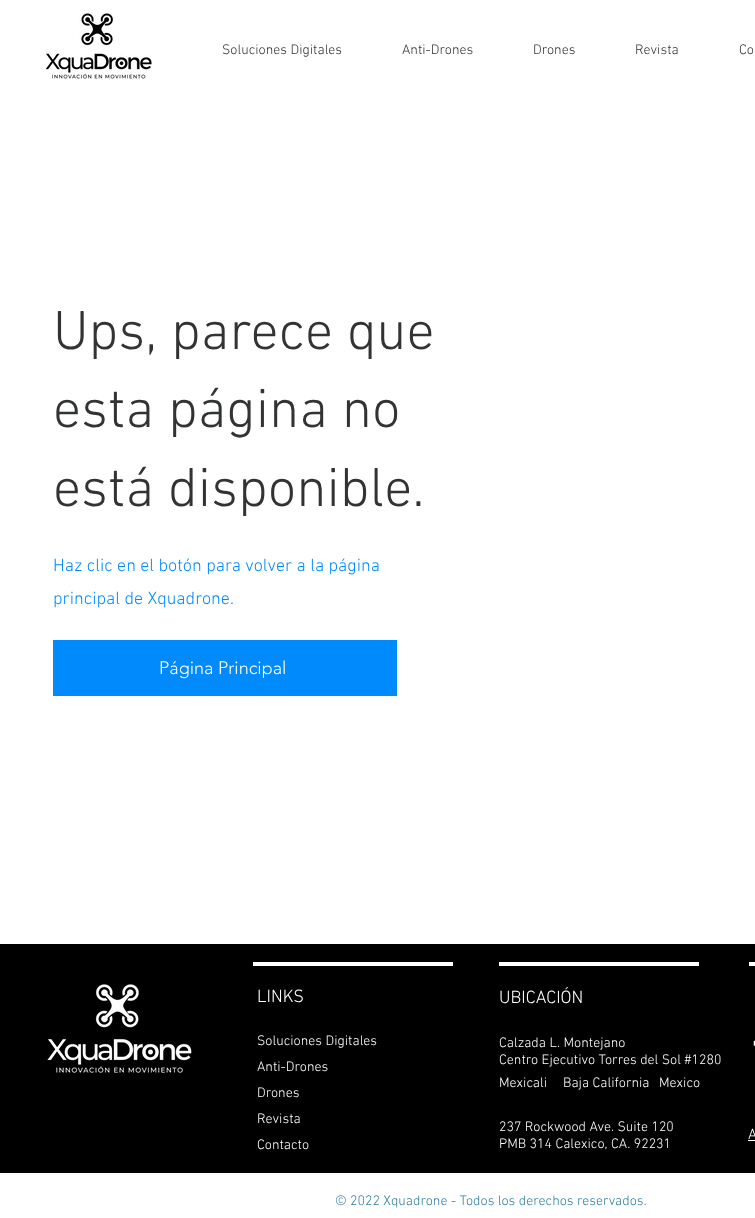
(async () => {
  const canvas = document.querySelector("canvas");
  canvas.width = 755;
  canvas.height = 1218;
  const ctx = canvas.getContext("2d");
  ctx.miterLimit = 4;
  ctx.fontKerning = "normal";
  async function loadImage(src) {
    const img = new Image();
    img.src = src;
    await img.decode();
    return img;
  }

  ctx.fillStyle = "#ffffff";
  ctx.fillRect(0, 0, 755, 1218);
  ctx.drawImage(await loadImage("img/1.png"), 45, 13, 107, 66);
  for (const [x, y, w, h, color] of [
    [53, 640, 344, 56, "#008afc"],
    [0, 944, 755, 229, "#000000"],
    [253, 962, 200, 4, "#ffffff"],
    [499, 962, 200, 4, "#ffffff"],
    [749, 962, 6, 4, "#ffffff"],
  ]) {
    ctx.fillStyle = color;
    ctx.fillRect(x, y, w, h);
  }
  ctx.drawImage(await loadImage("img/2.png"), 47, 984, 145, 89);
  ctx.drawImage(await loadImage("img/3.png"), 753, 1040, 2, 6);
  ctx.fillRect(748, 1140, 7, 1);
  ctx.font = "300 14px 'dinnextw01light'";
  ctx.fillStyle = "#323333";
  for (const [text, x, y] of [
    ["Soluciones Digitales", 222, 54],
    ["Anti-Drones", 402, 54],
    ["Drones", 533, 54],
    ["Revista", 635, 54],
    ["Co", 739, 54],
  ]) {
    ctx.fillText(text, x, y);
  }
  ctx.font = "300 56px 'dinnextw01light'";
  for (const [text, x, y] of [
    ["Ups, parece que", 53, 349],
    ["esta página no", 53, 427],
    ["está disponible.", 53, 506],
  ]) {
    ctx.fillText(text, x, y);
  }
  ctx.font = "300 18px 'dinnextw01light'";
  ctx.fillStyle = "#008afc";
  ctx.fillText("Haz clic en el botón para volver a la página", 53, 571);
  ctx.fillText("principal de Xquadrone.", 53, 604);
  ctx.font = "300 18px 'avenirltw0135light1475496'";
  ctx.fillStyle = "#ffffff";
  ctx.fillText("Página Principal", 159, 674);
  ctx.font = "300 18px 'dinnextw01light'";
  ctx.fillText("LINKS", 257, 1002);
  ctx.fillText("UBICACIÓN", 499, 1003);
  ctx.font = "300 14px 'dinnextw01light'";
  for (const [text, x, y] of [
    ["Soluciones Digitales", 257, 1045],
    ["Anti-Drones", 257, 1071],
    ["Drones", 257, 1097],
    ["Revista", 257, 1123],
    ["Contacto", 257, 1149],
    ["Calzada L. Montejano", 499, 1047],
    ["Centro Ejecutivo Torres del Sol #1280", 499, 1064],
    ["Mexicali", 499, 1087],
    ["Baja California", 563, 1087],
    ["Mexico", 659, 1087],
    ["237 Rockwood Ave. Suite 120", 499, 1131],
    ["PMB 314 Calexico, CA. 92231", 499, 1148],
  ]) {
    ctx.fillText(text, x, y);
  }
  ctx.font = "300 15px 'dinnextw01light'";
  ctx.fillText("A", 748, 1139);
  ctx.font = "300 14px 'dinnextw01light'";
  ctx.fillStyle = "#317ea1";
  ctx.fillText("© 2022 Xquadrone - Todos los derechos reservados.", 335, 1205);
})();
